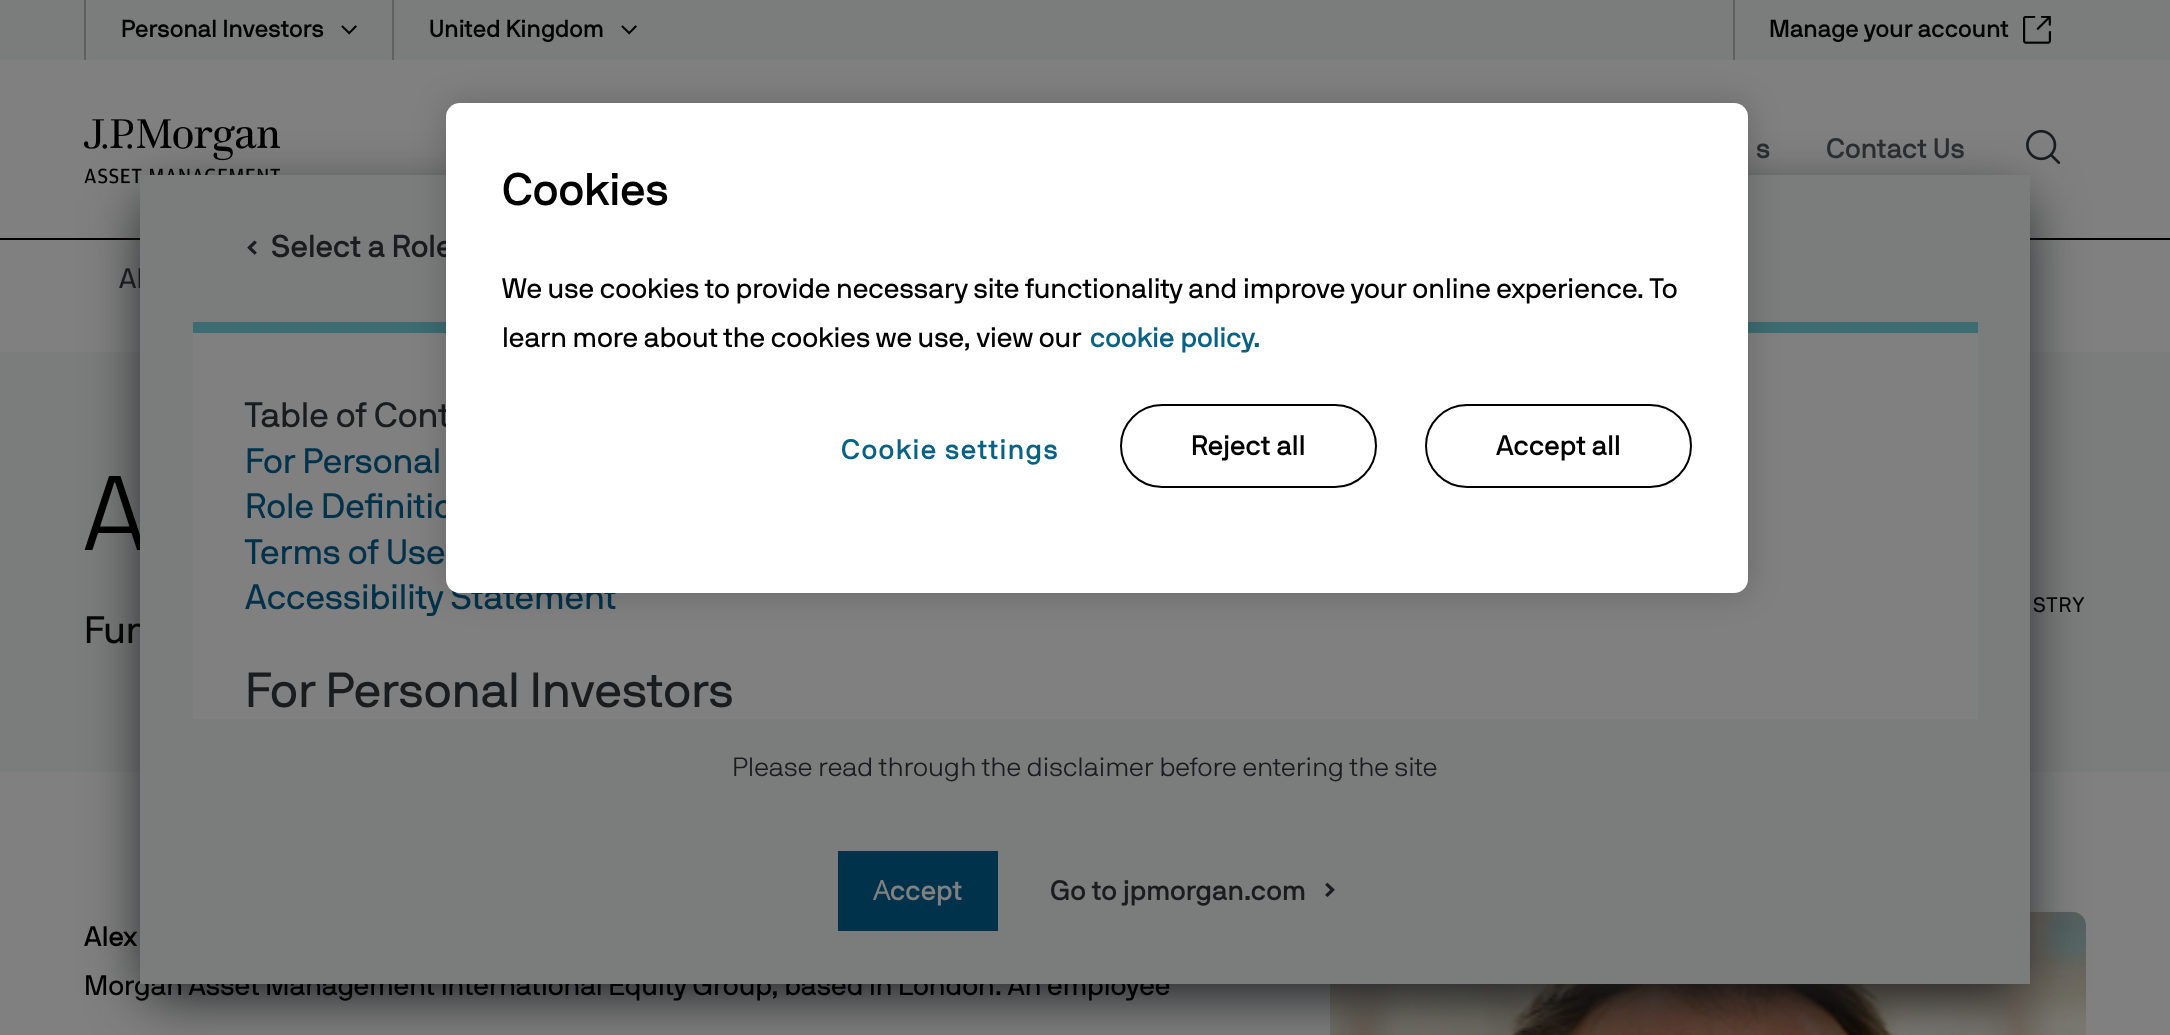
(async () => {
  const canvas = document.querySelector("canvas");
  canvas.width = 2170;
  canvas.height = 1035;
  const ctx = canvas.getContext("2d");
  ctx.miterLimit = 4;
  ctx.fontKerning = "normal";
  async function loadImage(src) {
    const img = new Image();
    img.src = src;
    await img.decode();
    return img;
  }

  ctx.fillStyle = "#808080";
  ctx.fillRect(0, 0, 2170, 1035);
  ctx.fillStyle = "#7b7c7c";
  ctx.fillRect(0, 0, 2170, 60);
  ctx.fillStyle = "#606060";
  ctx.fillRect(84, 0, 2, 60);
  ctx.drawImage(await loadImage("img/1.png"), 341, 25, 16, 10);
  ctx.fillRect(392, 0, 2, 60);
  ctx.drawImage(await loadImage("img/1.png"), 621, 25, 16, 10);
  ctx.fillRect(1733, 0, 2, 60);
  ctx.drawImage(await loadImage("img/2.png"), 2023, 16, 28, 28);
  ctx.drawImage(await loadImage("img/3.png"), 84, 119, 196, 65);
  ctx.drawImage(await loadImage("img/4.png"), 2026, 129, 35, 35);
  ctx.fillStyle = "#000000";
  ctx.fillRect(0, 238, 2170, 2);
  ctx.fillStyle = "#7b7c7c";
  ctx.fillRect(0, 352, 2170, 420);
  ctx.drawImage(await loadImage("img/7.png"), 1330, 911, 756, 124);
  ctx.fillStyle = "#1a1c1e";
  ctx.filter = "blur(29px)";
  ctx.beginPath();
  ctx.rect(147, 200, 1876, 794);
  ctx.fill();
  ctx.filter = "none";
  ctx.font = "500 24.5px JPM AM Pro";
  ctx.fillStyle = "#000000";
  for (const [text, x, y] of [
    ["Personal Investors", 121, 37],
    ["United Kingdom", 429, 37],
    ["Manage your account", 1769, 37],
  ]) {
    ctx.fillText(text, x, y);
  }
  ctx.font = "500 28px JPM AM Pro";
  ctx.fillStyle = "#2b2d2f";
  ctx.fillText("s", 1756, 158);
  ctx.fillText("Contact Us", 1826, 158);
  ctx.font = "28px JPM AM Pro";
  ctx.fillStyle = "#1a1c1e";
  ctx.fillText("Al", 119, 288);
  ctx.font = "300 105px JPM AM Pro";
  ctx.fillStyle = "#000000";
  ctx.fillText("A", 84, 550);
  ctx.font = "38px JPM AM Pro";
  ctx.fillStyle = "#070606";
  ctx.fillText("Fun", 84, 643);
  ctx.letterSpacing = "1.5px";
  ctx.font = "21px JPM AM Pro";
  ctx.fillText("STRY", 2033, 612);
  ctx.letterSpacing = "0px";
  ctx.font = "500 28px JPM AM Pro";
  ctx.fillStyle = "#000000";
  ctx.fillText("Alex", 84, 946);
  ctx.font = "28px JPM AM Pro";
  ctx.fillText("Morgan Asset Management International Equity Group, based in London. An employee", 84, 995);
  ctx.fillStyle = "#7b7c7c";
  ctx.fillRect(140, 175, 1890, 809);
  ctx.drawImage(await loadImage("img/6.png"), 1325, 882, 10, 15);
  ctx.font = "500 28px JPM AM Pro";
  ctx.fillStyle = "#1a1c1e";
  ctx.fillText("Go to jpmorgan.com", 1050, 900);
  ctx.drawImage(await loadImage("img/5.png"), 247, 240, 10, 15);
  ctx.font = "500 31.5px JPM AM Pro";
  ctx.fillText("Select a Role", 271, 257);
  ctx.fillStyle = "#808080";
  ctx.fillRect(193, 333, 1785, 386);
  ctx.font = "49px JPM AM Pro";
  ctx.fillStyle = "#1a1c1e";
  ctx.fillText("For Personal Investors", 245, 707);
  ctx.font = "35px JPM AM Pro";
  ctx.fillStyle = "#00324b";
  for (const [text, x, y] of [
    ["Accessibility Statement", 245, 609],
    ["Terms of Use", 245, 564],
    ["Role Definitio", 245, 518],
    ["For Personal", 245, 473],
  ]) {
    ctx.fillText(text, x, y);
  }
  ctx.fillStyle = "#1a1c1e";
  ctx.fillText("Table of Cont", 245, 427);
  ctx.fillStyle = "#3c6b71";
  ctx.fillRect(193, 322, 1785, 11);
  ctx.fillStyle = "#00324b";
  ctx.fillRect(838, 851, 160, 80);
  ctx.font = "500 28px JPM AM Pro";
  ctx.fillStyle = "#808080";
  ctx.fillText("ccept", 890, 900);
  ctx.font = "28px Noto Sans";
  ctx.fillText("A", 873, 900);
  ctx.font = "300 26.25px JPM AM Pro";
  ctx.fillStyle = "#1a1c1e";
  ctx.fillText("Please read through the disclaimer before entering the site", 732, 776);
  ctx.fillStyle = "rgba(0, 0, 0, 0.2)";
  ctx.filter = "blur(16px)";
  ctx.beginPath();
  ctx.roundRect(446, 103, 1302, 490, 14);
  ctx.fill();
  ctx.filter = "none";
  ctx.fillStyle = "#ffffff";
  ctx.beginPath();
  ctx.roundRect(446, 103, 1302, 490, 14);
  ctx.fill();
  ctx.font = "500 45.5px JPM AM Pro";
  ctx.fillStyle = "#000000";
  ctx.fillText("Cookies", 502, 205);
  ctx.font = "28px JPM AM Pro";
  ctx.fillText("We use cookies to provide necessary site functionality and improve your online experience. To", 502, 298);
  ctx.fillText("learn more about the cookies we use, view our", 502, 347);
  ctx.font = "500 28px JPM AM Pro";
  ctx.fillStyle = "#096183";
  ctx.fillText("cookie policy.", 1090, 347);
  ctx.letterSpacing = "1.4px";
  ctx.fillText("Cookie settings", 841, 459);
  ctx.beginPath();
  ctx.roundRect(1121, 405, 255, 82, 41);
  ctx.strokeStyle = "#000000";
  ctx.lineWidth = 2;
  ctx.stroke();
  ctx.letterSpacing = "0px";
  ctx.fillStyle = "#000000";
  ctx.fillText("Reject all", 1191, 455);
  ctx.beginPath();
  ctx.roundRect(1426, 405, 265, 82, 41);
  ctx.stroke();
  ctx.fillText("Accept all", 1496, 455);
})();
